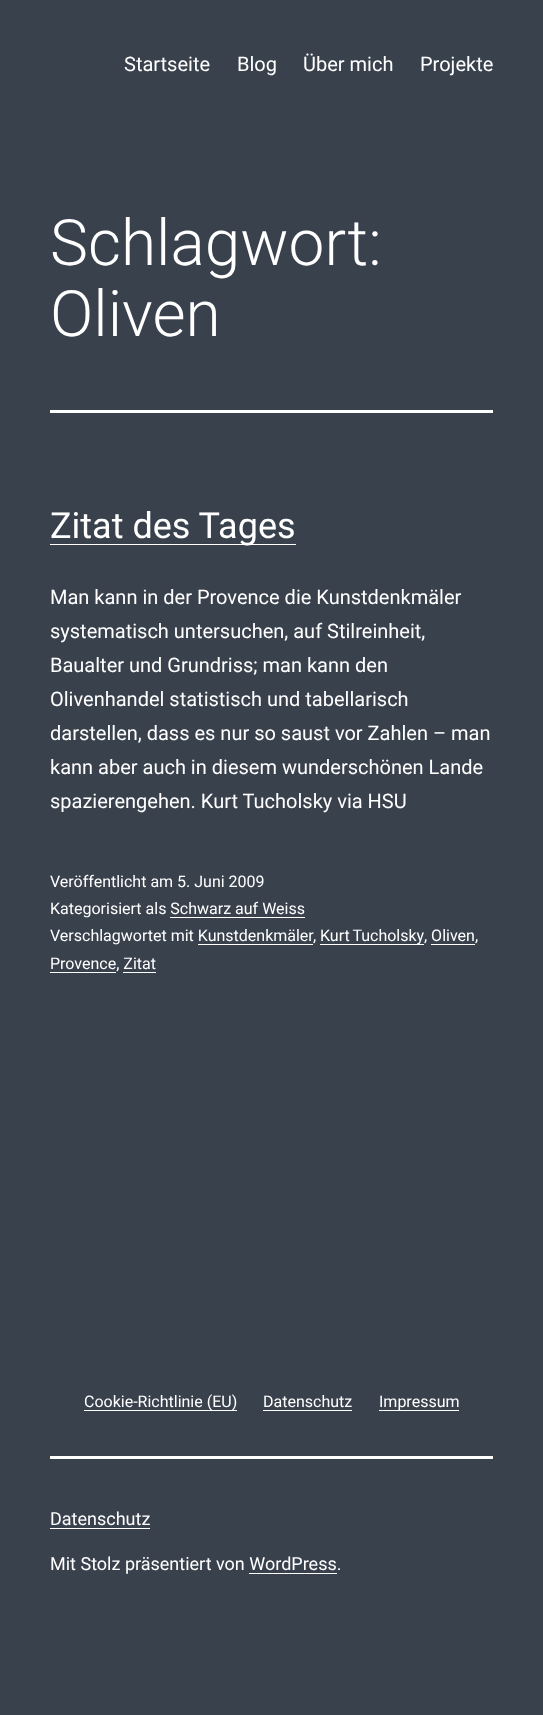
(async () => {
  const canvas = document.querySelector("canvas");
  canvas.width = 543;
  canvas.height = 1715;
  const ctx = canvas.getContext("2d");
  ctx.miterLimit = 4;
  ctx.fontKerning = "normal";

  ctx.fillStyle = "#39414d";
  ctx.fillRect(0, 0, 543, 1715);
  for (const [x, y, w, h, color] of [
    [50, 410, 443, 3, "#ffffff"],
    [50, 544, 246, 1, "#ffffff"],
    [170, 917, 135, 1, "#ffffff"],
    [320, 944, 104, 1, "#ffffff"],
    [198, 944, 115, 1, "#ffffff"],
    [431, 944, 44, 1, "#ffffff"],
    [50, 972, 66, 1, "#ffffff"],
    [123, 972, 33, 1, "#ffffff"],
    [84, 1410, 153, 1, "#ffffff"],
    [263, 1410, 89, 1, "#ffffff"],
    [379, 1410, 80, 1, "#ffffff"],
    [50, 1456, 443, 3, "#ffffff"],
    [50, 1528, 100, 1, "#ffffff"],
    [249, 1573, 88, 1, "#ffffff"],
  ]) {
    ctx.fillStyle = color;
    ctx.fillRect(x, y, w, h);
  }
  ctx.font = "20px Roboto";
  for (const [text, x, y] of [
    ["Startseite", 124, 71],
    ["Blog", 237, 71],
    ["Über mich", 303, 71],
    ["Projekte", 420, 71],
  ]) {
    ctx.fillText(text, x, y);
  }
  ctx.font = "300 64px Roboto";
  ctx.fillText("Schlagwort:", 50, 265);
  ctx.fillText("Oliven", 50, 336);
  ctx.font = "36px Roboto";
  ctx.fillText("Zitat des Tages", 50, 538);
  ctx.font = "20px Roboto";
  for (const [text, x, y] of [
    ["Man kann in der Provence die Kunstdenkmäler", 50, 604],
    ["systematisch untersuchen, auf Stilreinheit,", 50, 638],
    ["Baualter und Grundriss; man kann den", 50, 672],
    ["Olivenhandel statistisch und tabellarisch", 50, 706],
    ["darstellen, dass es nur so saust vor Zahlen – man", 50, 740],
    ["kann aber auch in diesem wunderschönen Lande", 50, 774],
    ["spazierengehen. Kurt Tucholsky via HSU", 50, 808],
  ]) {
    ctx.fillText(text, x, y);
  }
  ctx.font = "16px Roboto";
  for (const [text, x, y] of [
    ["Veröffentlicht am 5. Juni 2009", 50, 887],
    ["Kategorisiert als Schwarz auf Weiss", 50, 914],
    ["Verschlagwortet mit Kunstdenkmäler", 50, 941],
    [",", 313, 941],
  ]) {
    ctx.fillText(text, x, y);
  }
  ctx.wordSpacing = "-1px";
  ctx.fillText("Kurt Tucholsky", 320, 941);
  ctx.wordSpacing = "0px";
  for (const [text, x, y] of [
    [", Oliven,", 424, 941],
    ["Provence, Zitat", 50, 969],
    ["Cookie-Richtlinie (EU)", 84, 1407],
    ["Datenschutz", 263, 1407],
    ["Impressum", 379, 1407],
  ]) {
    ctx.fillText(text, x, y);
  }
  ctx.font = "18px Roboto";
  ctx.fillText("Datenschutz", 50, 1525);
  ctx.fillText("Mit Stolz präsentiert von WordPress.", 50, 1570);
})();
